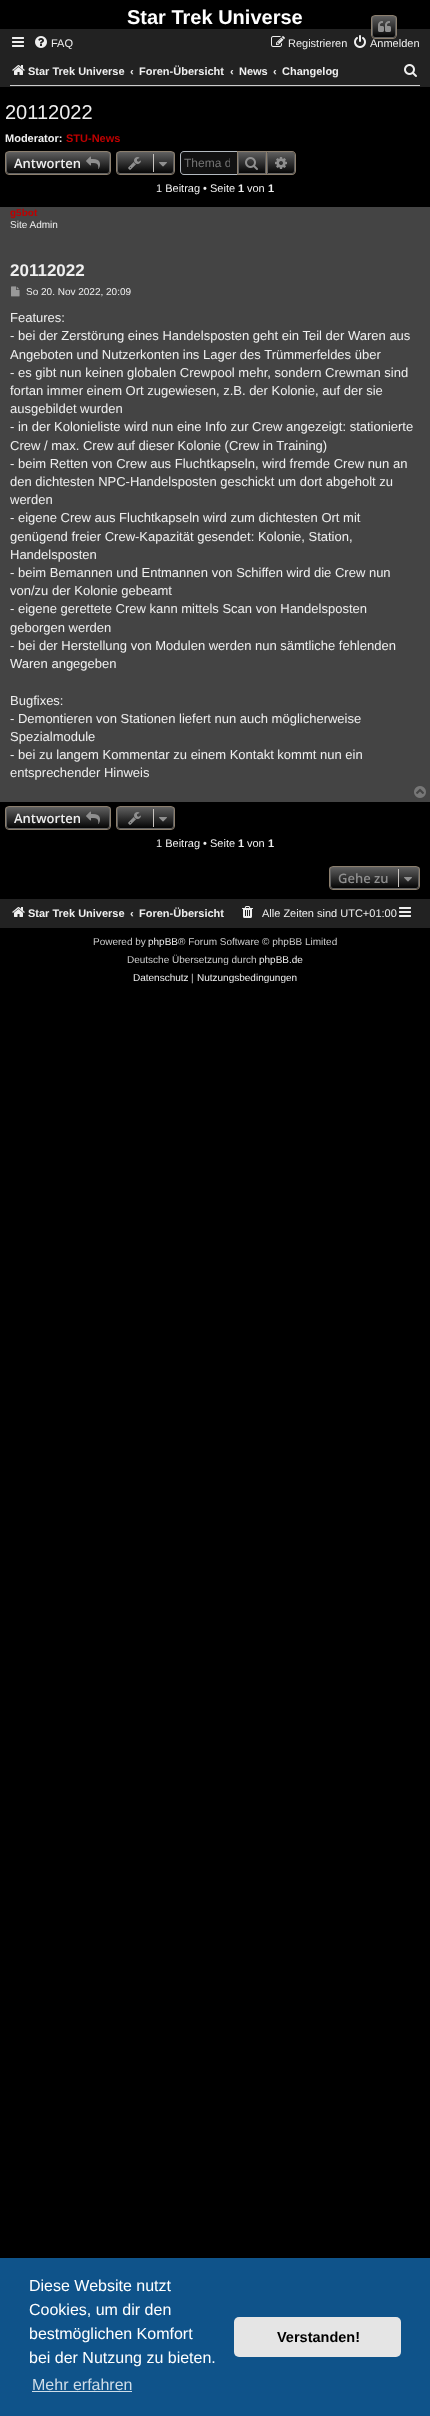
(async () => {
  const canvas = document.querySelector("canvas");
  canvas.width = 430;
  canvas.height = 2416;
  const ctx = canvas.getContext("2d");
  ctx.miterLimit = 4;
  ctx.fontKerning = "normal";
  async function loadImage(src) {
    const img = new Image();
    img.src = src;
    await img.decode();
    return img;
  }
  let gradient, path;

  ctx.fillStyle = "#000000";
  ctx.fillRect(0, 0, 430, 2416);
  ctx.fillStyle = "#222222";
  ctx.fillRect(0, 29, 430, 58);
  ctx.drawImage(await loadImage("img/1.png"), 12, 37, 12, 10);
  ctx.drawImage(await loadImage("img/2.png"), 35, 36, 12, 12);
  ctx.drawImage(await loadImage("img/3.png"), 271, 36, 14, 11);
  ctx.drawImage(await loadImage("img/4.png"), 354, 35, 12, 13);
  ctx.fillStyle = "#cccccc";
  ctx.fillRect(10, 85, 410, 1);
  ctx.drawImage(await loadImage("img/5.png"), 12, 65, 13, 10);
  ctx.drawImage(await loadImage("img/6.png"), 404, 64, 13, 13);
  ctx.save();
  ctx.beginPath();
  ctx.roundRect(5, 151, 106, 24, 4);
  ctx.clip();
  gradient = ctx.createLinearGradient(58, 152, 58, 174);
  gradient.addColorStop(0, "#606060");
  gradient.addColorStop(1, "#000000");
  ctx.fillStyle = gradient;
  ctx.fillRect(5, 152, 106, 22);
  ctx.restore();
  ctx.beginPath();
  ctx.roundRect(6.5, 152.5, 103, 21, 2.5);
  ctx.strokeStyle = "#606060";
  ctx.stroke();
  ctx.beginPath();
  ctx.roundRect(5.5, 151.5, 105, 23, 3.5);
  ctx.strokeStyle = "#8c7f6e";
  ctx.stroke();
  ctx.drawImage(await loadImage("img/7.png"), 86, 156, 14, 13);
  ctx.save();
  ctx.beginPath();
  ctx.roundRect(116, 151, 59, 24, 4);
  ctx.clip();
  gradient = ctx.createLinearGradient(146, 152, 146, 174);
  gradient.addColorStop(0, "#606060");
  gradient.addColorStop(1, "#000000");
  ctx.fillStyle = gradient;
  ctx.fillRect(116, 152, 59, 22);
  ctx.restore();
  ctx.beginPath();
  ctx.roundRect(117.5, 152.5, 56, 21, 2.5);
  ctx.strokeStyle = "#606060";
  ctx.stroke();
  ctx.beginPath();
  ctx.roundRect(116.5, 151.5, 58, 23, 3.5);
  ctx.strokeStyle = "#8c7f6e";
  ctx.stroke();
  ctx.drawImage(await loadImage("img/8.png"), 128, 157, 13, 13);
  ctx.fillStyle = "#c7c3bf";
  ctx.fillRect(153, 154, 1, 18);
  ctx.drawImage(await loadImage("img/9.png"), 159, 162, 8, 5);
  ctx.fillStyle = "#111111";
  ctx.beginPath();
  ctx.roundRect(181, 152, 56, 22, [3, 0, 0, 3]);
  ctx.fill();
  ctx.fillStyle = "#b4bac0";
  path = new Path2D("M184 151H237V175H184C182 175 180 173 180 171V155C180 153 182 151 184 151ZM184 152H237V174H184C182 174 181 173 181 171V155C181 153 182 152 184 152Z");
  ctx.fill(path, "evenodd");
  gradient = ctx.createLinearGradient(252, 152, 252, 174);
  gradient.addColorStop(0, "#606060");
  gradient.addColorStop(1, "#000000");
  ctx.fillStyle = gradient;
  ctx.fillRect(239, 153, 26, 20);
  ctx.strokeStyle = "#606060";
  ctx.strokeRect(238.5, 152.5, 27, 21);
  ctx.strokeStyle = "#8c7f6e";
  ctx.strokeRect(237.5, 151.5, 29, 23);
  ctx.drawImage(await loadImage("img/10.png"), 245, 157, 13, 13);
  gradient = ctx.createLinearGradient(281, 152, 281, 174);
  gradient.addColorStop(0, "#606060");
  gradient.addColorStop(1, "#000000");
  ctx.fillStyle = gradient;
  ctx.beginPath();
  ctx.roundRect(267.5, 152.5, 27, 21, [0, 2.5, 2.5, 0]);
  ctx.fill();
  ctx.strokeStyle = "#606060";
  ctx.stroke();
  ctx.fillStyle = "#8c7f6e";
  path = new Path2D("M267 151H292C294 151 296 153 296 155V171C296 173 294 175 292 175H267ZM267 152H292C293.5 152 295 153.5 295 155V171C295 172.5 293.5 174 292 174H267Z");
  ctx.fill(path, "evenodd");
  ctx.drawImage(await loadImage("img/11.png"), 275, 157, 12, 12);
  ctx.fillStyle = "#444444";
  ctx.fillRect(0, 207, 430, 595);
  ctx.save();
  ctx.beginPath();
  ctx.roundRect(371, 15, 26, 24, 4);
  ctx.clip();
  gradient = ctx.createLinearGradient(384, 16, 384, 38);
  gradient.addColorStop(0, "#606060");
  gradient.addColorStop(1, "#000000");
  ctx.fillStyle = gradient;
  ctx.fillRect(371, 16, 26, 22);
  ctx.restore();
  ctx.beginPath();
  ctx.roundRect(372.5, 16.5, 23, 21, 2.5);
  ctx.stroke();
  ctx.beginPath();
  ctx.roundRect(371.5, 15.5, 25, 23, 3.5);
  ctx.strokeStyle = "#8c7f6e";
  ctx.stroke();
  ctx.drawImage(await loadImage("img/12.png"), 378, 21, 13, 11);
  ctx.drawImage(await loadImage("img/13.png"), 11, 286, 9, 11);
  ctx.drawImage(await loadImage("img/14.png"), 414, 786, 12, 12);
  ctx.save();
  ctx.beginPath();
  ctx.roundRect(5, 806, 106, 24, 4);
  ctx.clip();
  gradient = ctx.createLinearGradient(58, 807, 58, 829);
  gradient.addColorStop(0, "#606060");
  gradient.addColorStop(1, "#000000");
  ctx.fillStyle = gradient;
  ctx.fillRect(5, 807, 106, 22);
  ctx.restore();
  ctx.beginPath();
  ctx.roundRect(6.5, 807.5, 103, 21, 2.5);
  ctx.strokeStyle = "#606060";
  ctx.stroke();
  ctx.beginPath();
  ctx.roundRect(5.5, 806.5, 105, 23, 3.5);
  ctx.strokeStyle = "#8c7f6e";
  ctx.stroke();
  ctx.drawImage(await loadImage("img/7.png"), 86, 811, 14, 13);
  ctx.save();
  ctx.beginPath();
  ctx.roundRect(116, 806, 59, 24, 4);
  ctx.clip();
  gradient = ctx.createLinearGradient(146, 807, 146, 829);
  gradient.addColorStop(0, "#606060");
  gradient.addColorStop(1, "#000000");
  ctx.fillStyle = gradient;
  ctx.fillRect(116, 807, 59, 22);
  ctx.restore();
  ctx.beginPath();
  ctx.roundRect(117.5, 807.5, 56, 21, 2.5);
  ctx.strokeStyle = "#606060";
  ctx.stroke();
  ctx.beginPath();
  ctx.roundRect(116.5, 806.5, 58, 23, 3.5);
  ctx.strokeStyle = "#8c7f6e";
  ctx.stroke();
  ctx.drawImage(await loadImage("img/8.png"), 128, 812, 13, 13);
  ctx.fillStyle = "#c7c3bf";
  ctx.fillRect(153, 809, 1, 18);
  ctx.drawImage(await loadImage("img/9.png"), 159, 817, 8, 5);
  ctx.save();
  ctx.beginPath();
  ctx.roundRect(329, 866, 91, 24, 4);
  ctx.clip();
  gradient = ctx.createLinearGradient(375, 867, 375, 889);
  gradient.addColorStop(0, "#606060");
  gradient.addColorStop(1, "#000000");
  ctx.fillStyle = gradient;
  ctx.fillRect(329, 867, 91, 22);
  ctx.restore();
  ctx.beginPath();
  ctx.roundRect(330.5, 867.5, 88, 21, 2.5);
  ctx.strokeStyle = "#606060";
  ctx.stroke();
  ctx.beginPath();
  ctx.roundRect(329.5, 866.5, 90, 23, 3.5);
  ctx.strokeStyle = "#8c7f6e";
  ctx.stroke();
  ctx.fillRect(398, 869, 1, 18);
  ctx.drawImage(await loadImage("img/9.png"), 404, 877, 8, 5);
  ctx.fillStyle = "#222222";
  ctx.fillRect(0, 899, 430, 29);
  ctx.drawImage(await loadImage("img/5.png"), 12, 907, 13, 10);
  ctx.drawImage(await loadImage("img/15.png"), 242, 906, 11, 12);
  ctx.drawImage(await loadImage("img/1.png"), 399, 907, 12, 10);
  ctx.fillStyle = "#0f538a";
  ctx.fillRect(0, 2258, 430, 158);
  ctx.fillStyle = "#cfdde8";
  ctx.fillRect(32, 2391, 100, 1);
  ctx.fillStyle = "#e5e5e5";
  ctx.beginPath();
  ctx.roundRect(234, 2317, 167, 40, 5);
  ctx.fill();
  ctx.font = "bold 20px Liberation Sans";
  ctx.fillStyle = "#ffffff";
  ctx.fillText("Star Trek Universe", 127, 24);
  ctx.font = "11px Liberation Sans";
  ctx.fillStyle = "#efefef";
  for (const [text, x, y] of [
    ["FAQ", 51, 47],
    ["Registrieren", 288, 47],
    ["Anmelden", 370, 47],
  ]) {
    ctx.fillText(text, x, y);
  }
  ctx.font = "bold 11px Liberation Sans";
  for (const [text, x, y] of [
    ["Star Trek Universe", 28, 75],
    ["‹", 130, 75],
    ["Foren-Übersicht", 139, 75],
    ["‹", 230, 75],
    ["News", 239, 75],
    ["‹", 273, 75],
    ["Changelog", 282, 75],
  ]) {
    ctx.fillText(text, x, y);
  }
  ctx.font = "20px Liberation Sans";
  ctx.fillText("20112022", 5, 119);
  ctx.font = "bold 11px Liberation Sans";
  ctx.fillText("Moderator:", 5, 142);
  ctx.fillStyle = "#bf0000";
  ctx.fillText("STU-News", 66, 142);
  ctx.font = "600 13px Open Sans";
  ctx.fillStyle = "#efefef";
  ctx.fillText("Antworten", 14, 168);
  ctx.save();
  ctx.beginPath();
  ctx.rect(184, 156, 46, 14);
  ctx.clip();
  ctx.font = "12px Liberation Sans";
  ctx.fillStyle = "#757575";
  ctx.fillText("Thema d", 184, 167);
  ctx.restore();
  ctx.font = "11px Liberation Sans";
  ctx.fillText("1 Beitrag • Seite", 156, 192);
  ctx.font = "bold 11px Liberation Sans";
  ctx.fillText("1", 238, 192);
  ctx.font = "11px Liberation Sans";
  ctx.fillText("von", 247, 192);
  ctx.font = "bold 11px Liberation Sans";
  ctx.fillText("1", 268, 192);
  ctx.font = "bold 10px Liberation Sans";
  ctx.fillStyle = "#bf0000";
  ctx.fillText("g5bot", 10, 216);
  ctx.font = "10px Liberation Sans";
  ctx.fillStyle = "#efefef";
  ctx.fillText("Site Admin", 10, 228);
  ctx.font = "bold 17px Liberation Sans";
  ctx.fillText("20112022", 10, 276);
  ctx.font = "10px Liberation Sans";
  ctx.fillText("So 20. Nov 2022, 20:09", 26, 295);
  ctx.font = "13px Liberation Sans";
  for (const [text, x, y] of [
    ["Features:", 10, 322],
    ["- bei der Zerstörung eines Handelsposten geht ein Teil der Waren aus", 10, 340],
    ["Angeboten und Nutzerkonten ins Lager des Trümmerfeldes über", 10, 359],
    ["- es gibt nun keinen globalen Crewpool mehr, sondern Crewman sind", 10, 377],
    ["fortan immer einem Ort zugewiesen, z.B. der Kolonie, auf der sie", 10, 395],
    ["ausgebildet wurden", 10, 413],
    ["- in der Kolonieliste wird nun eine Info zur Crew angezeigt: stationierte", 10, 431],
    ["Crew / max. Crew auf dieser Kolonie (Crew in Training)", 10, 450],
    ["- beim Retten von Crew aus Fluchtkapseln, wird fremde Crew nun an", 10, 468],
    ["den dichtesten NPC-Handelsposten geschickt um dort abgeholt zu", 10, 486],
    ["werden", 10, 504],
    ["- eigene Crew aus Fluchtkapseln wird zum dichtesten Ort mit", 10, 522],
    ["genügend freier Crew-Kapazität gesendet: Kolonie, Station,", 10, 541],
    ["Handelsposten", 10, 559],
    ["- beim Bemannen und Entmannen von Schiffen wird die Crew nun", 10, 577],
    ["von/zu der Kolonie gebeamt", 10, 595],
    ["- eigene gerettete Crew kann mittels Scan von Handelsposten", 10, 613],
    ["geborgen werden", 10, 632],
    ["- bei der Herstellung von Modulen werden nun sämtliche fehlenden", 10, 650],
    ["Waren angegeben", 10, 668],
    ["Bugfixes:", 10, 705],
    ["- Demontieren von Stationen liefert nun auch möglicherweise", 10, 723],
    ["Spezialmodule", 10, 741],
    ["- bei zu langem Kommentar zu einem Kontakt kommt nun ein", 10, 759],
    ["entsprechender Hinweis", 10, 777],
  ]) {
    ctx.fillText(text, x, y);
  }
  ctx.font = "600 13px Open Sans";
  ctx.fillText("Antworten", 14, 823);
  ctx.font = "11px Liberation Sans";
  ctx.fillText("1 Beitrag • Seite", 156, 847);
  ctx.font = "bold 11px Liberation Sans";
  ctx.fillText("1", 238, 847);
  ctx.font = "11px Liberation Sans";
  ctx.fillText("von", 247, 847);
  ctx.font = "bold 11px Liberation Sans";
  ctx.fillText("1", 268, 847);
  ctx.font = "600 13px Open Sans";
  ctx.fillStyle = "#8f8f8f";
  ctx.fillText("Gehe zu", 338, 883);
  ctx.font = "bold 11px Liberation Sans";
  ctx.fillStyle = "#efefef";
  for (const [text, x, y] of [
    ["Star Trek Universe", 28, 917],
    ["‹", 130, 917],
    ["Foren-Übersicht", 139, 917],
  ]) {
    ctx.fillText(text, x, y);
  }
  ctx.font = "11px Liberation Sans";
  ctx.fillText("Alle Zeiten sind UTC+01:00", 262, 917);
  ctx.font = "10px Liberation Sans";
  ctx.fillStyle = "#cccccc";
  ctx.fillText("Powered by", 93, 945);
  ctx.fillStyle = "#efefef";
  ctx.fillText("phpBB", 148, 945);
  ctx.fillStyle = "#cccccc";
  ctx.fillText("® Forum Software © phpBB Limited", 178, 945);
  ctx.fillText("Deutsche Übersetzung durch", 127, 963);
  ctx.fillStyle = "#efefef";
  ctx.fillText("phpBB.de", 259, 963);
  ctx.fillText("Datenschutz", 133, 981);
  ctx.fillStyle = "#cccccc";
  ctx.fillText("|", 191, 981);
  ctx.fillStyle = "#efefef";
  ctx.fillText("Nutzungsbedingungen", 197, 981);
  ctx.font = "16px Liberation Sans";
  ctx.fillStyle = "#ffffff";
  for (const [text, x, y] of [
    ["Diese Website nutzt", 29, 2291],
    ["Cookies, um dir den", 29, 2315],
    ["bestmöglichen Komfort", 29, 2339],
    ["bei der Nutzung zu bieten.", 29, 2363],
  ]) {
    ctx.fillText(text, x, y);
  }
  ctx.fillStyle = "#cfdde8";
  ctx.fillText("Mehr erfahren", 32, 2390);
  ctx.font = "bold 14.5px Liberation Sans";
  ctx.fillStyle = "#000000";
  ctx.fillText("Verstanden!", 277, 2342);
})();
